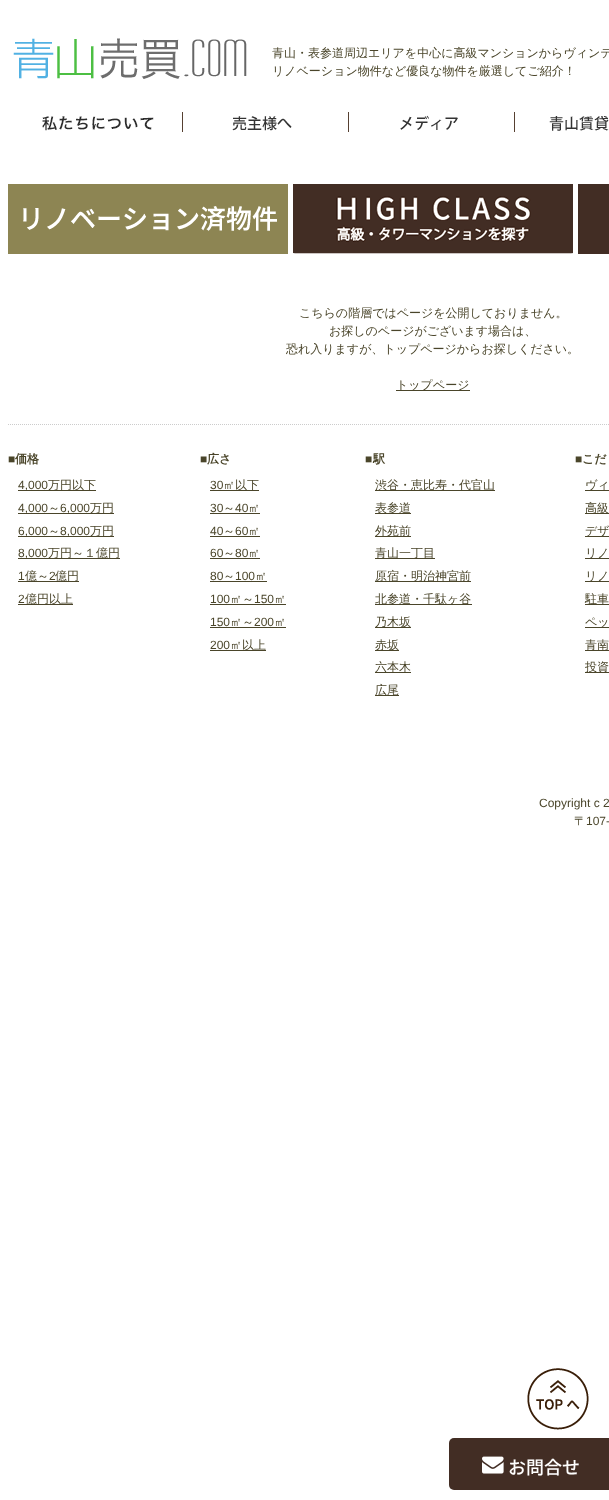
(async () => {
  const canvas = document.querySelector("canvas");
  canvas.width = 609;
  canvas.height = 1500;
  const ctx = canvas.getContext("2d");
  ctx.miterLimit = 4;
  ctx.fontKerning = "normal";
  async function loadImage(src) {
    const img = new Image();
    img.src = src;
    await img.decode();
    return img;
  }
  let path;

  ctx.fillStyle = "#ffffff";
  ctx.fillRect(0, 0, 609, 1500);
  ctx.drawImage(await loadImage("img/1.png"), 13, 38, 234, 41);
  ctx.drawImage(await loadImage("img/2.png"), 42, 116, 112, 15);
  ctx.fillStyle = "#564031";
  ctx.fillRect(182, 112, 1, 20);
  ctx.drawImage(await loadImage("img/3.png"), 232, 116, 60, 15);
  ctx.fillRect(348, 112, 1, 20);
  ctx.drawImage(await loadImage("img/4.png"), 400, 115, 58, 15);
  ctx.fillRect(514, 112, 1, 20);
  ctx.drawImage(await loadImage("img/5.png"), 549, 116, 60, 15);
  ctx.drawImage(await loadImage("img/6.png"), 8, 184, 280, 70);
  ctx.drawImage(await loadImage("img/7.png"), 293, 184, 280, 70);
  ctx.fillStyle = "#422d24";
  ctx.fillRect(578, 184, 31, 70);
  ctx.fillStyle = "#4a452a";
  ctx.fillRect(396, 390, 74, 1);
  path = new Path2D("M8 424.5H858");
  ctx.strokeStyle = "#cccccc";
  ctx.setLineDash([1, 1]);
  ctx.stroke(path);
  for (const [x, y, w, h, color] of [
    [18, 490, 78, 1, "#4a452a"],
    [18, 513, 96, 1, "#4a452a"],
    [18, 536, 96, 1, "#4a452a"],
    [18, 558, 102, 1, "#4a452a"],
    [18, 581, 61, 1, "#4a452a"],
    [18, 604, 55, 1, "#4a452a"],
    [210, 490, 49, 1, "#4a452a"],
    [210, 513, 50, 1, "#4a452a"],
    [210, 536, 50, 1, "#4a452a"],
    [210, 558, 50, 1, "#4a452a"],
    [210, 581, 57, 1, "#4a452a"],
    [210, 604, 76, 1, "#4a452a"],
    [210, 627, 76, 1, "#4a452a"],
    [210, 650, 56, 1, "#4a452a"],
    [375, 490, 120, 1, "#4a452a"],
    [375, 513, 36, 1, "#4a452a"],
    [375, 536, 36, 1, "#4a452a"],
    [375, 558, 60, 1, "#4a452a"],
    [375, 581, 96, 1, "#4a452a"],
    [375, 604, 97, 1, "#4a452a"],
    [375, 627, 36, 1, "#4a452a"],
    [375, 650, 24, 1, "#4a452a"],
    [375, 672, 36, 1, "#4a452a"],
    [375, 695, 24, 1, "#4a452a"],
    [585, 490, 24, 1, "#4a452a"],
    [585, 513, 24, 1, "#4a452a"],
    [585, 536, 24, 1, "#4a452a"],
    [585, 558, 24, 1, "#4a452a"],
    [585, 581, 24, 1, "#4a452a"],
    [585, 604, 24, 1, "#4a452a"],
    [585, 627, 24, 1, "#4a452a"],
    [585, 650, 24, 1, "#4a452a"],
    [585, 672, 24, 1, "#4a452a"],
  ]) {
    ctx.fillStyle = color;
    ctx.fillRect(x, y, w, h);
  }
  ctx.drawImage(await loadImage("img/8.png"), 527, 1368, 62, 62);
  ctx.fillStyle = "#422d24";
  ctx.beginPath();
  ctx.roundRect(449, 1438, 160, 52, [5, 0, 0, 5]);
  ctx.fill();
  ctx.drawImage(await loadImage("img/9.png"), 482, 1456, 22, 18);
  ctx.font = "500 12px WenQuanYi Zen Hei";
  ctx.fillStyle = "#4a452a";
  for (const [text, x, y] of [
    ["青山・表参道周辺エリアを中心に高級マンションからヴィンテ", 272, 57],
    ["リノベーション物件など優良な物件を厳選してご紹介！", 272, 75],
    ["こちらの階層ではページを公開しておりません。", 299, 317],
    ["お探しのページがございます場合は、", 329, 335],
    ["恐れ入りますが、トップページからお探しください。", 286, 353],
    ["トップページ", 396, 389],
  ]) {
    ctx.fillText(text, x, y);
  }
  ctx.font = "bold 12px Liberation Sans";
  ctx.fillText("■", 8, 463);
  ctx.font = "bold 12px WenQuanYi Zen Hei";
  ctx.fillText("価格", 15, 463);
  ctx.font = "12px Liberation Sans";
  ctx.fillText("4,000", 18, 489);
  ctx.font = "500 12px WenQuanYi Zen Hei";
  ctx.fillText("万円以下", 48, 489);
  ctx.font = "12px Liberation Sans";
  ctx.fillText("4,000", 18, 512);
  ctx.font = "500 12px WenQuanYi Zen Hei";
  ctx.fillText("～", 48, 512);
  ctx.font = "12px Liberation Sans";
  ctx.fillText("6,000", 60, 512);
  ctx.font = "500 12px WenQuanYi Zen Hei";
  ctx.fillText("万円", 90, 512);
  ctx.font = "12px Liberation Sans";
  ctx.fillText("6,000", 18, 535);
  ctx.font = "500 12px WenQuanYi Zen Hei";
  ctx.fillText("～", 48, 535);
  ctx.font = "12px Liberation Sans";
  ctx.fillText("8,000", 60, 535);
  ctx.font = "500 12px WenQuanYi Zen Hei";
  ctx.fillText("万円", 90, 535);
  ctx.font = "12px Liberation Sans";
  ctx.fillText("8,000", 18, 557);
  ctx.font = "500 12px WenQuanYi Zen Hei";
  ctx.fillText("万円～１億円", 48, 557);
  ctx.font = "12px Liberation Sans";
  ctx.fillText("1", 18, 580);
  ctx.font = "500 12px WenQuanYi Zen Hei";
  ctx.fillText("億～", 25, 580);
  ctx.font = "12px Liberation Sans";
  ctx.fillText("2", 49, 580);
  ctx.font = "500 12px WenQuanYi Zen Hei";
  ctx.fillText("億円", 55, 580);
  ctx.font = "12px Liberation Sans";
  ctx.fillText("2", 18, 603);
  ctx.font = "500 12px WenQuanYi Zen Hei";
  ctx.fillText("億円以上", 25, 603);
  ctx.font = "bold 12px Liberation Sans";
  ctx.fillText("■", 200, 463);
  ctx.font = "bold 12px WenQuanYi Zen Hei";
  ctx.fillText("広さ", 207, 463);
  ctx.font = "12px Liberation Sans";
  ctx.fillText("30", 210, 489);
  ctx.font = "500 12px WenQuanYi Zen Hei";
  ctx.fillText("㎡以下", 223, 489);
  ctx.font = "12px Liberation Sans";
  ctx.fillText("30", 210, 512);
  ctx.font = "500 12px WenQuanYi Zen Hei";
  ctx.fillText("～", 223, 512);
  ctx.font = "12px Liberation Sans";
  ctx.fillText("40", 235, 512);
  ctx.font = "500 12px WenQuanYi Zen Hei";
  ctx.fillText("㎡", 248, 512);
  ctx.font = "12px Liberation Sans";
  ctx.fillText("40", 210, 535);
  ctx.font = "500 12px WenQuanYi Zen Hei";
  ctx.fillText("～", 223, 535);
  ctx.font = "12px Liberation Sans";
  ctx.fillText("60", 235, 535);
  ctx.font = "500 12px WenQuanYi Zen Hei";
  ctx.fillText("㎡", 248, 535);
  ctx.font = "12px Liberation Sans";
  ctx.fillText("60", 210, 557);
  ctx.font = "500 12px WenQuanYi Zen Hei";
  ctx.fillText("～", 223, 557);
  ctx.font = "12px Liberation Sans";
  ctx.fillText("80", 235, 557);
  ctx.font = "500 12px WenQuanYi Zen Hei";
  ctx.fillText("㎡", 248, 557);
  ctx.font = "12px Liberation Sans";
  ctx.fillText("80", 210, 580);
  ctx.font = "500 12px WenQuanYi Zen Hei";
  ctx.fillText("～", 223, 580);
  ctx.font = "12px Liberation Sans";
  ctx.fillText("100", 235, 580);
  ctx.font = "500 12px WenQuanYi Zen Hei";
  ctx.fillText("㎡", 255, 580);
  ctx.font = "12px Liberation Sans";
  ctx.fillText("100", 210, 603);
  ctx.font = "500 12px WenQuanYi Zen Hei";
  ctx.fillText("㎡～", 230, 603);
  ctx.font = "12px Liberation Sans";
  ctx.fillText("150", 254, 603);
  ctx.font = "500 12px WenQuanYi Zen Hei";
  ctx.fillText("㎡", 274, 603);
  ctx.font = "12px Liberation Sans";
  ctx.fillText("150", 210, 626);
  ctx.font = "500 12px WenQuanYi Zen Hei";
  ctx.fillText("㎡～", 230, 626);
  ctx.font = "12px Liberation Sans";
  ctx.fillText("200", 254, 626);
  ctx.font = "500 12px WenQuanYi Zen Hei";
  ctx.fillText("㎡", 274, 626);
  ctx.font = "12px Liberation Sans";
  ctx.fillText("200", 210, 649);
  ctx.font = "500 12px WenQuanYi Zen Hei";
  ctx.fillText("㎡以上", 230, 649);
  ctx.font = "bold 12px Liberation Sans";
  ctx.fillText("■", 365, 463);
  ctx.font = "bold 12px WenQuanYi Zen Hei";
  ctx.fillText("駅", 373, 463);
  ctx.font = "500 12px WenQuanYi Zen Hei";
  for (const [text, x, y] of [
    ["渋谷・恵比寿・代官山", 375, 489],
    ["表参道", 375, 512],
    ["外苑前", 375, 535],
    ["青山一丁目", 375, 557],
    ["原宿・明治神宮前", 375, 580],
    ["北参道・千駄ヶ谷", 375, 603],
    ["乃木坂", 375, 626],
    ["赤坂", 375, 649],
    ["六本木", 375, 671],
    ["広尾", 375, 694],
  ]) {
    ctx.fillText(text, x, y);
  }
  ctx.font = "bold 12px Liberation Sans";
  ctx.fillText("■", 575, 463);
  ctx.font = "bold 12px WenQuanYi Zen Hei";
  ctx.fillText("こだ", 582, 463);
  ctx.font = "500 12px WenQuanYi Zen Hei";
  for (const [text, x, y] of [
    ["ヴィ", 585, 489],
    ["高級", 585, 512],
    ["デザ", 585, 535],
    ["リノ", 585, 557],
    ["リノ", 585, 580],
    ["駐車", 585, 603],
    ["ペッ", 585, 626],
    ["青南", 585, 649],
    ["投資", 585, 671],
  ]) {
    ctx.fillText(text, x, y);
  }
  ctx.font = "12px Liberation Sans";
  ctx.fillText("Copyright c 2", 539, 807);
  ctx.font = "500 12px WenQuanYi Zen Hei";
  ctx.fillText("〒", 574, 825);
  ctx.font = "12px Liberation Sans";
  ctx.fillText("107-", 586, 825);
  ctx.font = "100 18px Noto Sans JP";
  ctx.fillStyle = "#ffffff";
  ctx.fillText("お問合せ", 508, 1474);
})();
